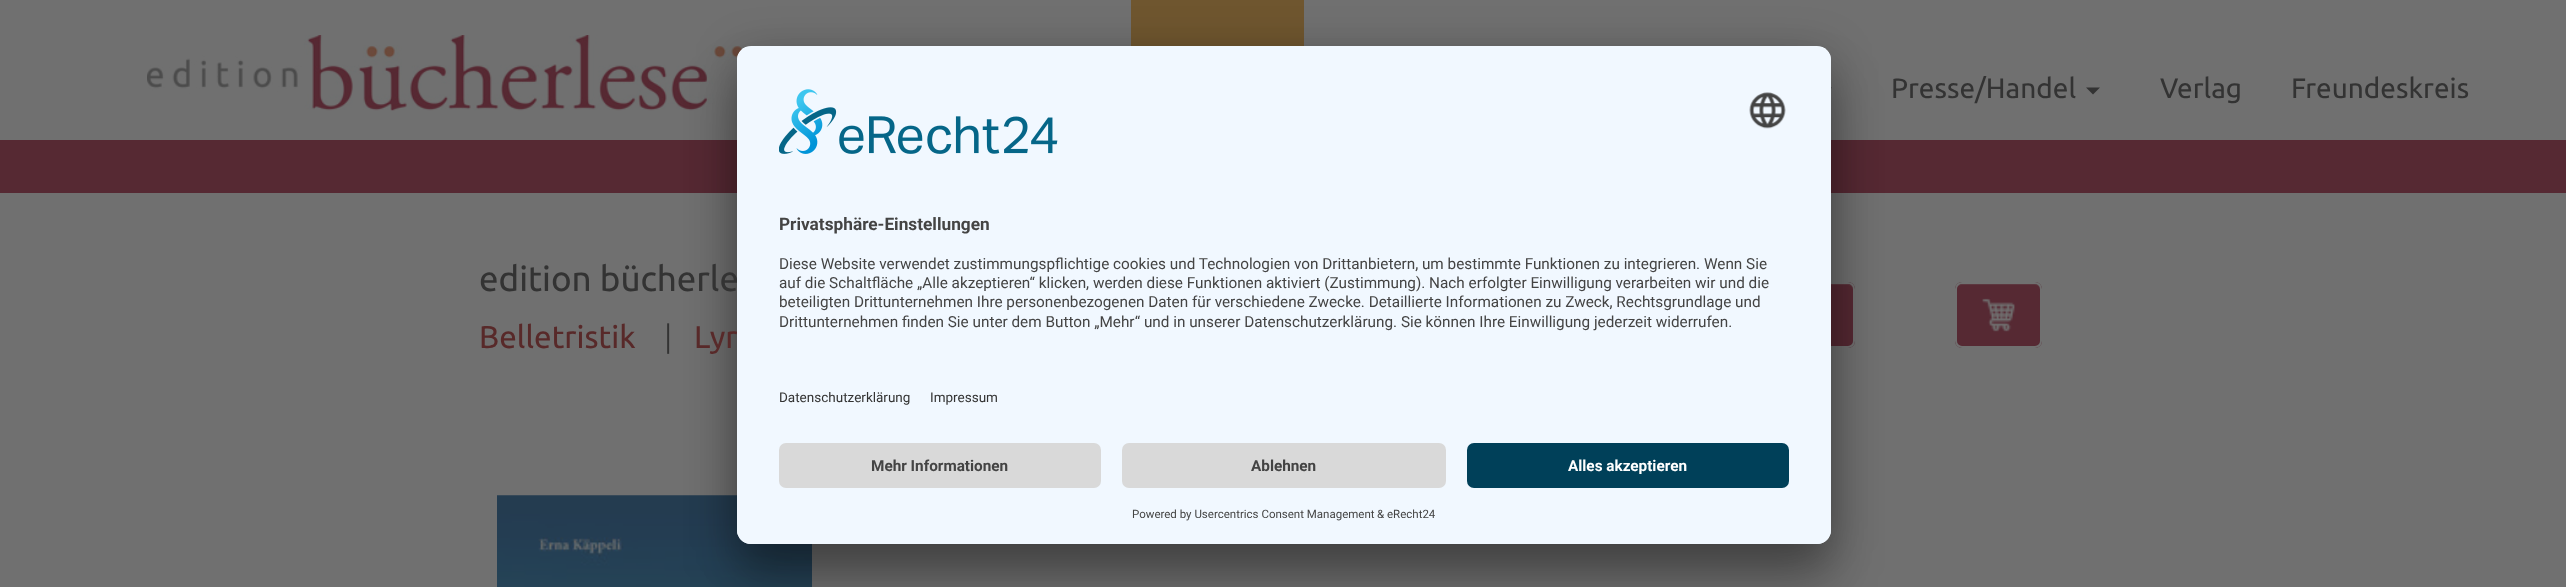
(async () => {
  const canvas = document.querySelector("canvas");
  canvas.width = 2566;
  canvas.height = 587;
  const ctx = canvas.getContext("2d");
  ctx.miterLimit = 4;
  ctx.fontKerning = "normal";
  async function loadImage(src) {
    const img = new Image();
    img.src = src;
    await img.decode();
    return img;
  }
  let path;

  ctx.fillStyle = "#707070";
  ctx.fillRect(0, 0, 2566, 587);
  ctx.drawImage(await loadImage("img/1.png"), 147, 35, 613, 76);
  ctx.fillStyle = "#6f562f";
  ctx.fillRect(1131, 0, 173, 46);
  ctx.fillStyle = "#333333";
  path = new Path2D("M1818 87.5H1832L1825 94.5Z");
  ctx.fill(path);
  path = new Path2D("M2086 87.5H2100L2093 94.5Z");
  ctx.fill(path);
  ctx.fillStyle = "#562933";
  ctx.fillRect(0, 140, 2566, 53);
  ctx.beginPath();
  ctx.roundRect(1768, 282, 87, 66, 7);
  ctx.fill();
  ctx.fillStyle = "#5c373f";
  path = new Path2D("M1774 285H1848C1851 285 1853 288 1853 290C1853 281 1841 284 1836 284H1786C1781 284 1769 281 1769 290C1769 288 1772 285 1774 285Z");
  ctx.fill(path);
  ctx.beginPath();
  ctx.roundRect(1769, 283, 85, 64, 6);
  ctx.strokeStyle = "#707070";
  ctx.lineWidth = 2;
  ctx.stroke();
  ctx.fillStyle = "#562933";
  ctx.beginPath();
  ctx.roundRect(1955, 282, 87, 66, 7);
  ctx.fill();
  ctx.fillStyle = "#5c373f";
  path = new Path2D("M1962 285H2035C2038 285 2040 288 2040 290V343L2039 346C2040 345 2041 343 2041 342V289C2041 286 2039 284 2036 284H1962C1960 284 1958 285 1957 287C1958 286 1960 285 1962 285Z");
  ctx.fill(path);
  ctx.beginPath();
  ctx.roundRect(1956, 283, 85, 64, 6);
  ctx.stroke();
  ctx.drawImage(await loadImage("img/2.png"), 1982, 298, 33, 34);
  ctx.drawImage(await loadImage("img/3.png"), 497, 495, 315, 92);
  ctx.fillStyle = "rgba(0, 0, 0, 0.3)";
  ctx.filter = "blur(24.5px)";
  ctx.beginPath();
  ctx.roundRect(737, 81, 1094, 498, 14);
  ctx.fill();
  ctx.filter = "none";
  ctx.fillStyle = "rgba(0, 0, 0, 0.22)";
  ctx.filter = "blur(23px)";
  ctx.beginPath();
  ctx.roundRect(737, 54, 1094, 499, 14);
  ctx.fill();
  ctx.filter = "none";
  ctx.font = "28px Ubuntu";
  ctx.fillStyle = "#333333";
  for (const [text, x, y] of [
    ["Presse/Handel", 1891, 98],
    ["Verlag", 2160, 98],
    ["Freundeskreis", 2291, 98],
  ]) {
    ctx.fillText(text, x, y);
  }
  ctx.font = "35px Ubuntu";
  ctx.fillText("edition bücherle", 479, 291);
  ctx.font = "31.5px Ubuntu";
  ctx.fillStyle = "#582929";
  ctx.fillText("Belletristik", 479, 348);
  ctx.font = "300 31.5px Ubuntu";
  ctx.fillStyle = "#333333";
  ctx.fillText("|", 664, 348);
  ctx.font = "31.5px Ubuntu";
  ctx.fillStyle = "#582929";
  ctx.fillText("Lyr", 694, 348);
  ctx.fillStyle = "#f1f8ff";
  ctx.beginPath();
  ctx.roundRect(737, 46, 1094, 498, 14);
  ctx.fill();
  ctx.save();
  ctx.beginPath();
  ctx.roundRect(737, 46, 1094, 498, 14);
  ctx.clip();
  ctx.beginPath();
  ctx.roundRect(737, 46, 1094, 383, [14, 14, 0, 0]);
  ctx.clip();
  ctx.fillRect(737, 47, 1094, 382);
  ctx.restore();
  ctx.drawImage(await loadImage("img/4.png"), 779, 89, 279, 65);
  ctx.drawImage(await loadImage("img/5.png"), 1749, 92, 37, 37);
  ctx.font = "bold 17.25px Roboto";
  ctx.fillStyle = "#444444";
  ctx.fillText("Privatsphäre-Einstellungen", 779, 230);
  ctx.font = "15.3px Roboto";
  for (const [text, x, y] of [
    ["Diese Website verwendet zustimmungspflichtige cookies und Technologien von Drittanbietern, um bestimmte Funktionen zu integrieren. Wenn Sie", 779, 269],
    ["auf die Schaltfläche „Alle akzeptieren“ klicken, werden diese Funktionen aktiviert (Zustimmung). Nach erfolgter Einwilligung verarbeiten wir und die", 779, 288],
    ["beteiligten Drittunternehmen Ihre personenbezogenen Daten für verschiedene Zwecke. Detaillierte Informationen zu Zweck, Rechtsgrundlage und", 779, 307],
    ["Drittunternehmen finden Sie unter dem Button „Mehr“ und in unserer Datenschutzerklärung. Sie können Ihre Einwilligung jederzeit widerrufen.", 779, 327],
  ]) {
    ctx.fillText(text, x, y);
  }
  ctx.font = "13.5px Roboto";
  ctx.fillStyle = "#333333";
  ctx.fillText("Datenschutzerklärung", 779, 402);
  ctx.fillText("Impressum", 930, 402);
  ctx.fillStyle = "#f1f8ff";
  ctx.beginPath();
  ctx.roundRect(737, 429, 1094, 115, [0, 0, 14, 14]);
  ctx.fill();
  ctx.fillStyle = "#d9d9d9";
  ctx.beginPath();
  ctx.roundRect(779, 443, 322, 45, 7);
  ctx.fill();
  ctx.font = "bold 15.3px Roboto";
  ctx.fillStyle = "#444444";
  ctx.fillText("Mehr Informationen", 871, 471);
  ctx.fillStyle = "#d9d9d9";
  ctx.beginPath();
  ctx.roundRect(1122, 443, 324, 45, 7);
  ctx.fill();
  ctx.fillStyle = "#444444";
  ctx.fillText("Ablehnen", 1251, 471);
  ctx.fillStyle = "#004059";
  ctx.beginPath();
  ctx.roundRect(1467, 443, 322, 45, 7);
  ctx.fill();
  ctx.fillStyle = "#ffffff";
  ctx.fillText("Alles akzeptieren", 1568, 471);
  ctx.font = "11.5px Roboto";
  ctx.fillStyle = "#444444";
  ctx.fillText("Powered by Usercentrics Consent Management", 1132, 518);
  ctx.fillText("& eRecht24", 1377, 518);
})();
